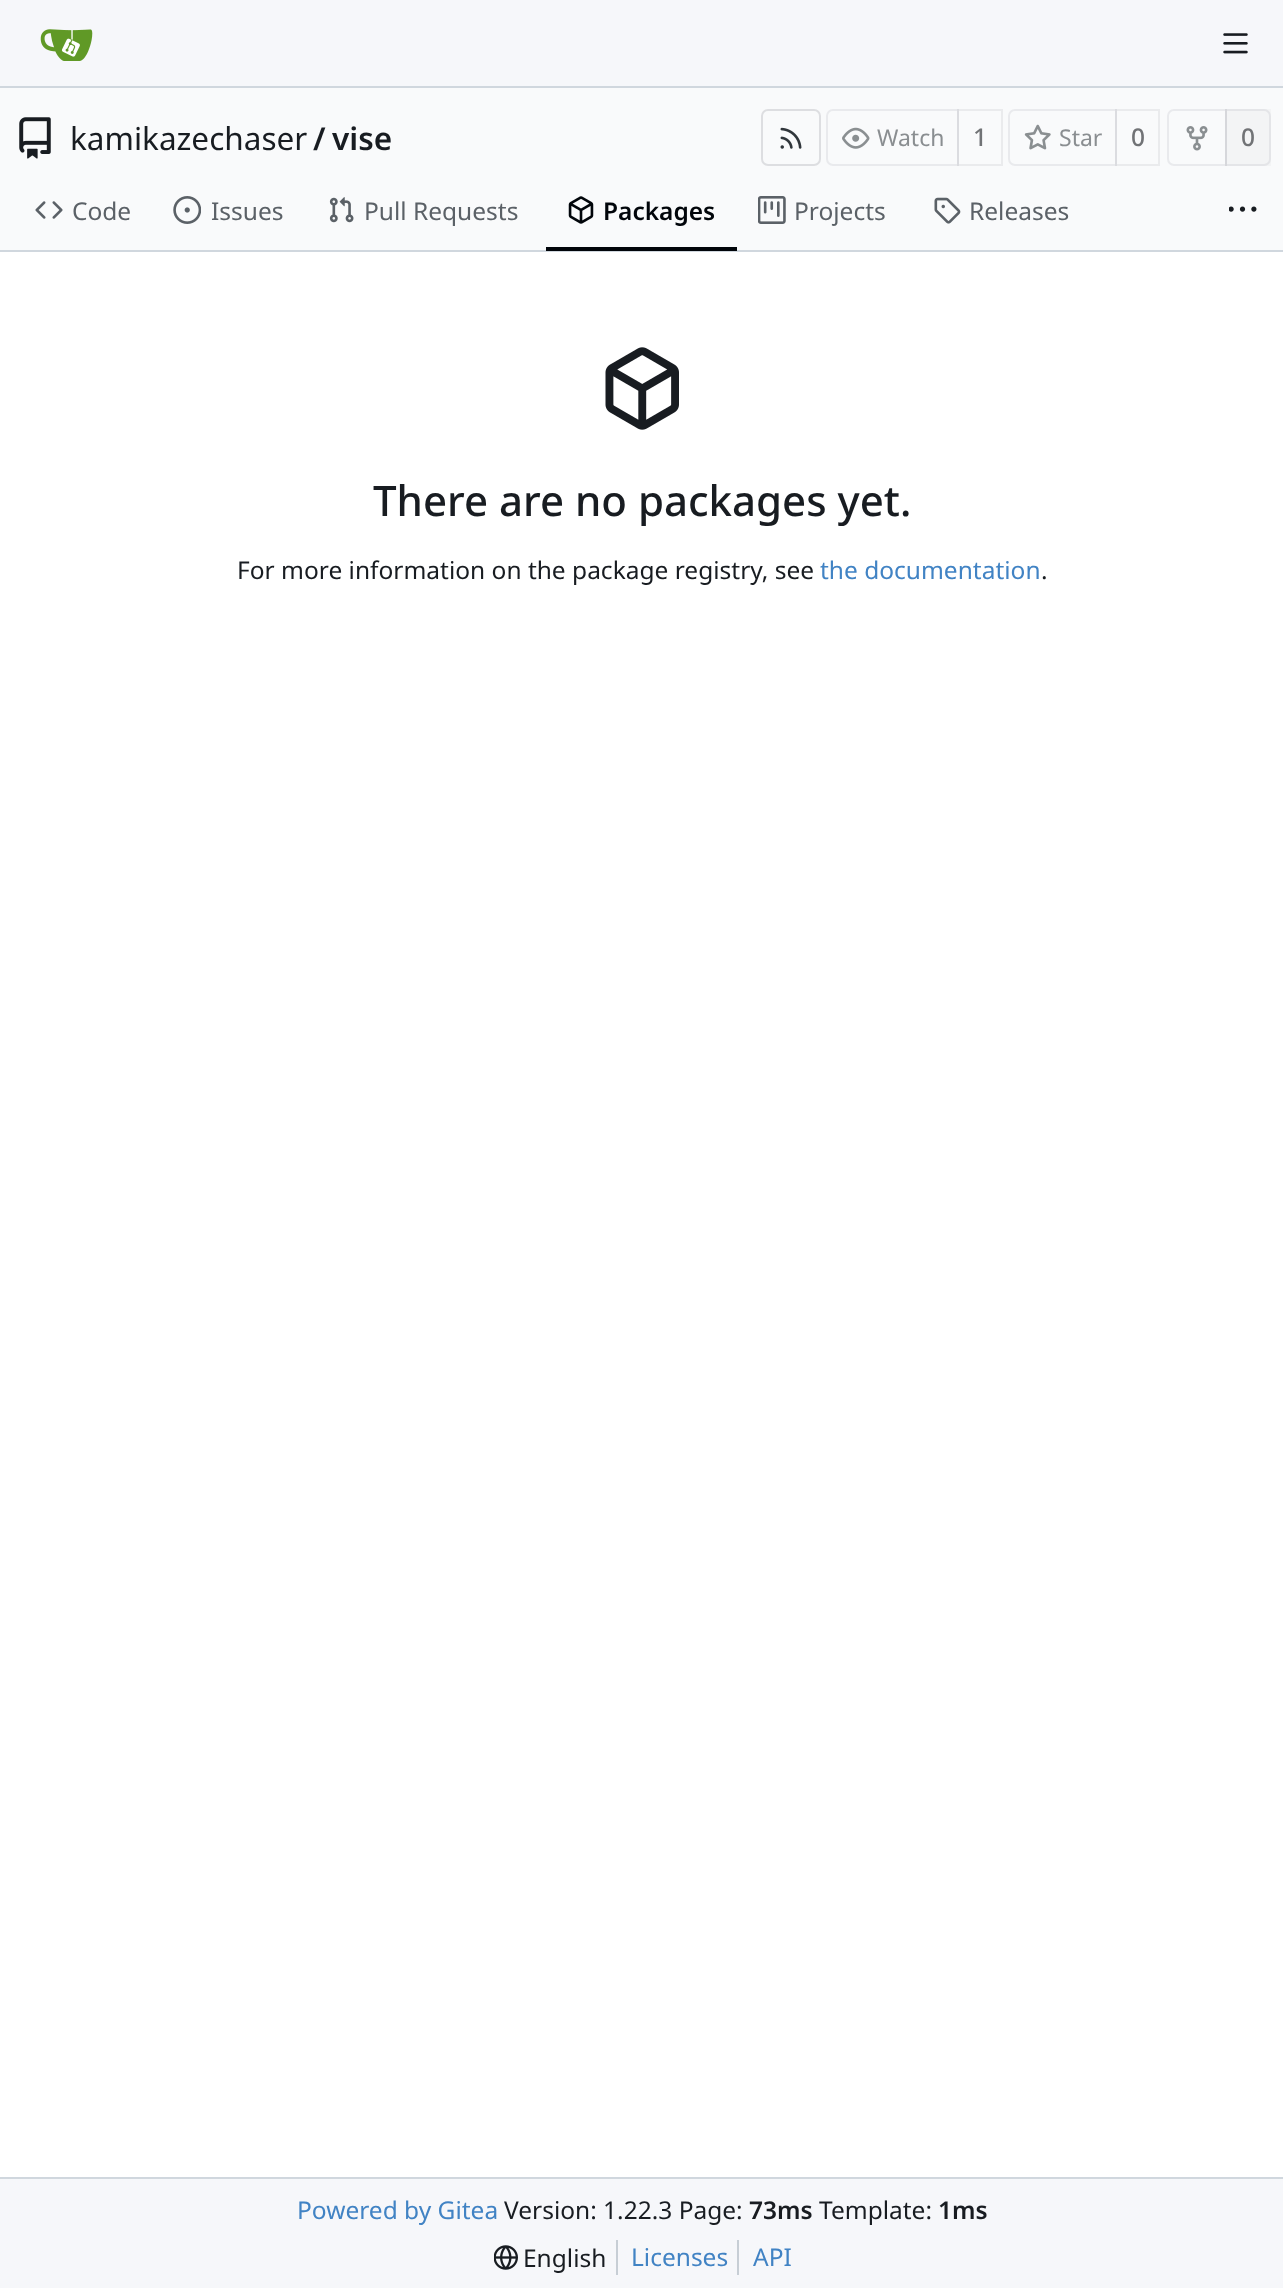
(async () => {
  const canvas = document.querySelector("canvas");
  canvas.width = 1283;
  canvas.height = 2288;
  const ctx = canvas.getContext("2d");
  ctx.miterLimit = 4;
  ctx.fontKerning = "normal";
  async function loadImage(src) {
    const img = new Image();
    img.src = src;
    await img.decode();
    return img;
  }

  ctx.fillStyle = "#ffffff";
  ctx.fillRect(0, 0, 1283, 2288);
  ctx.fillStyle = "#f6f7fa";
  ctx.fillRect(0, 0, 1283, 86);
  ctx.fillStyle = "#d0d7de";
  ctx.fillRect(0, 86, 1283, 2);
  ctx.drawImage(await loadImage("img/1.png"), 40, 29, 53, 32);
  ctx.drawImage(await loadImage("img/2.png"), 1223, 33, 25, 21);
  ctx.fillStyle = "#f9fafb";
  ctx.fillRect(0, 88, 1283, 162);
  ctx.drawImage(await loadImage("img/3.png"), 19, 117, 32, 42);
  ctx.beginPath();
  ctx.roundRect(762, 110, 58, 55, 6);
  ctx.strokeStyle = "#dddee1";
  ctx.lineWidth = 2;
  ctx.stroke();
  ctx.drawImage(await loadImage("img/4.png"), 780, 127, 22, 22);
  ctx.beginPath();
  ctx.roundRect(827, 110, 131, 55, [6, 0, 0, 6]);
  ctx.strokeStyle = "#e9eaed";
  ctx.stroke();
  ctx.drawImage(await loadImage("img/5.png"), 842, 127, 28, 22);
  ctx.strokeStyle = "rgba(0, 0, 23, 0.06)";
  ctx.strokeRect(958, 110, 44, 55);
  ctx.beginPath();
  ctx.roundRect(1009, 110, 107, 55, [6, 0, 0, 6]);
  ctx.strokeStyle = "#e9eaed";
  ctx.stroke();
  ctx.drawImage(await loadImage("img/6.png"), 1024, 124, 27, 26);
  ctx.strokeStyle = "rgba(0, 0, 23, 0.06)";
  ctx.strokeRect(1116, 110, 43, 55);
  ctx.beginPath();
  ctx.roundRect(1168, 110, 58, 55, [6, 0, 0, 6]);
  ctx.strokeStyle = "#e9eaed";
  ctx.stroke();
  ctx.drawImage(await loadImage("img/7.png"), 1186, 126, 22, 25);
  ctx.fillStyle = "rgba(112, 113, 113, 0.04)";
  ctx.fillRect(1225, 109, 46, 57);
  ctx.beginPath();
  ctx.roundRect(1226, 110, 44, 55, [0, 6, 6, 0]);
  ctx.strokeStyle = "rgba(112, 113, 126, 0.11)";
  ctx.stroke();
  ctx.drawImage(await loadImage("img/8.png"), 35, 201, 28, 18);
  ctx.drawImage(await loadImage("img/9.png"), 173, 196, 28, 28);
  ctx.drawImage(await loadImage("img/10.png"), 329, 197, 25, 26);
  ctx.fillStyle = "#d0d7de";
  ctx.fillRect(0, 250, 1283, 2);
  ctx.fillStyle = "#01050a";
  ctx.fillRect(546, 247, 191, 4);
  ctx.drawImage(await loadImage("img/11.png"), 568, 196, 26, 28);
  ctx.drawImage(await loadImage("img/12.png"), 758, 196, 28, 28);
  ctx.drawImage(await loadImage("img/13.png"), 934, 197, 27, 27);
  ctx.drawImage(await loadImage("img/14.png"), 1229, 206, 28, 6);
  ctx.drawImage(await loadImage("img/15.png"), 605, 347, 74, 83);
  ctx.fillStyle = "#f6f7fa";
  ctx.fillRect(0, 2179, 1283, 109);
  ctx.fillStyle = "#d0d7de";
  ctx.fillRect(0, 2177, 1283, 2);
  ctx.drawImage(await loadImage("img/16.png"), 494, 2245, 24, 25);
  ctx.fillStyle = "#c7ced5";
  ctx.fillRect(616, 2240, 2, 35);
  ctx.fillRect(737, 2240, 2, 35);
  ctx.font = "31.5px Noto Sans";
  ctx.fillStyle = "#181c21";
  ctx.fillText("kamikazechaser", 70, 150);
  ctx.font = "600 31.5px Noto Sans";
  ctx.fillText("/", 313, 150);
  ctx.fillText("vise", 332, 150);
  ctx.font = "23px Noto Sans";
  ctx.fillStyle = "#8a8e91";
  ctx.fillText("Watch", 877, 146);
  ctx.font = "500 24.5px Noto Sans";
  ctx.fillStyle = "#717376";
  ctx.fillText("1", 973, 146);
  ctx.font = "23px Noto Sans";
  ctx.fillStyle = "#8a8e91";
  ctx.fillText("Star", 1059, 146);
  ctx.font = "500 24.5px Noto Sans";
  ctx.fillStyle = "#717376";
  ctx.fillText("0", 1131, 146);
  ctx.fillText("0", 1241, 146);
  ctx.font = "24.5px Noto Sans";
  ctx.fillStyle = "#5b6167";
  for (const [text, x, y] of [
    ["Code", 72, 220],
    ["Issues", 211, 220],
    ["Pull Requests", 364, 220],
  ]) {
    ctx.fillText(text, x, y);
  }
  ctx.font = "600 24.5px Noto Sans";
  ctx.fillStyle = "#01050a";
  ctx.fillText("Packages", 603, 220);
  ctx.font = "24.5px Noto Sans";
  ctx.fillStyle = "#5b6167";
  ctx.fillText("Projects", 794, 220);
  ctx.fillText("Releases", 969, 220);
  ctx.font = "500 42px Noto Sans";
  ctx.fillStyle = "#181c21";
  ctx.fillText("There are no packages yet.", 373, 516);
  ctx.font = "24.5px Noto Sans";
  ctx.fillText("For more information on the package registry, see", 237, 579);
  ctx.fillStyle = "#4183c4";
  ctx.fillText("the documentation", 820, 579);
  ctx.fillStyle = "#181c21";
  ctx.fillText(".", 1041, 579);
  ctx.fillStyle = "#4183c4";
  ctx.fillText("Powered by Gitea", 297, 2219);
  ctx.fillStyle = "#181c21";
  ctx.fillText("Version: 1.22.3 Page:", 504, 2219);
  ctx.font = "600 24.5px Noto Sans";
  ctx.fillText("73ms", 749, 2219);
  ctx.font = "24.5px Noto Sans";
  ctx.fillText("Template:", 819, 2219);
  ctx.font = "600 24.5px Noto Sans";
  ctx.fillText("1ms", 938, 2219);
  ctx.font = "24.5px Noto Sans";
  ctx.fillText("English", 523, 2267);
  ctx.fillStyle = "#4183c4";
  ctx.fillText("Licenses", 631, 2266);
  ctx.fillText("API", 753, 2266);
})();
